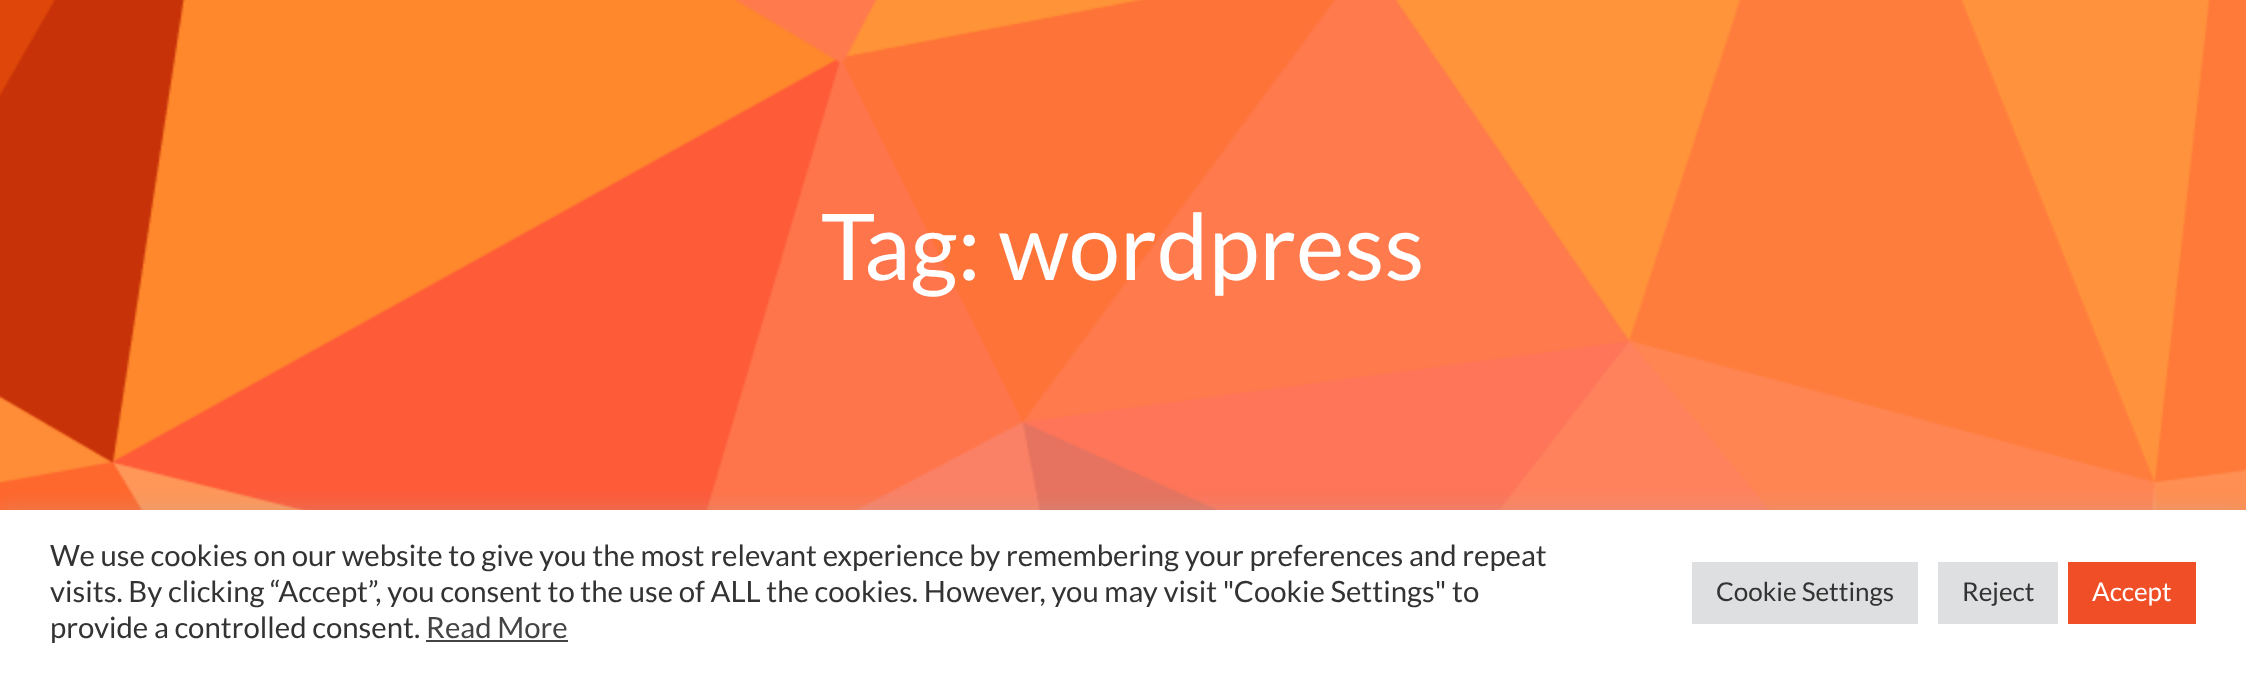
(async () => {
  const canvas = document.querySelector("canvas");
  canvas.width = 2246;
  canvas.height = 673;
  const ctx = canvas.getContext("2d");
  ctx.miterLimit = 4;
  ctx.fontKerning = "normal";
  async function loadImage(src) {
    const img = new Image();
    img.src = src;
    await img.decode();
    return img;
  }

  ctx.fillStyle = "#ffffff";
  ctx.fillRect(0, 0, 2246, 673);
  ctx.drawImage(await loadImage("img/1.png"), 0, 0, 2246, 510);
  ctx.fillStyle = "rgba(172, 171, 171, 0.3)";
  ctx.filter = "blur(10px)";
  ctx.beginPath();
  ctx.rect(0, 508, 2246, 164);
  ctx.fill();
  ctx.filter = "none";
  for (const [x, y, w, h, color] of [
    [0, 510, 2246, 163, "#ffffff"],
    [426, 640, 142, 2, "#444444"],
    [1692, 562, 226, 62, "#dedfe0"],
    [1938, 562, 120, 62, "#dedfe0"],
    [2068, 562, 128, 62, "#f04e26"],
  ]) {
    ctx.fillStyle = color;
    ctx.fillRect(x, y, w, h);
  }
  ctx.font = "92px Lato";
  ctx.fillStyle = "#ffffff";
  ctx.fillText("Tag: wordpress", 821, 280);
  ctx.font = "29.33px Lato";
  ctx.fillStyle = "#333333";
  for (const [text, x, y] of [
    ["We use cookies on our website to give you the most relevant experience by remembering your preferences and repeat", 50, 566],
    ["visits. By clicking “Accept”, you consent to the use of ALL the cookies. However, you may visit \"Cookie Settings\" to", 50, 602],
    ["provide a controlled consent.", 50, 638],
  ]) {
    ctx.fillText(text, x, y);
  }
  ctx.fillStyle = "#444444";
  ctx.fillText("Read More", 426, 638);
  ctx.font = "26px Lato";
  ctx.fillStyle = "#333333";
  ctx.fillText("Cookie Settings", 1716, 601);
  ctx.fillText("Reject", 1962, 601);
  ctx.fillStyle = "#ffffff";
  ctx.fillText("Accept", 2092, 601);
})();
